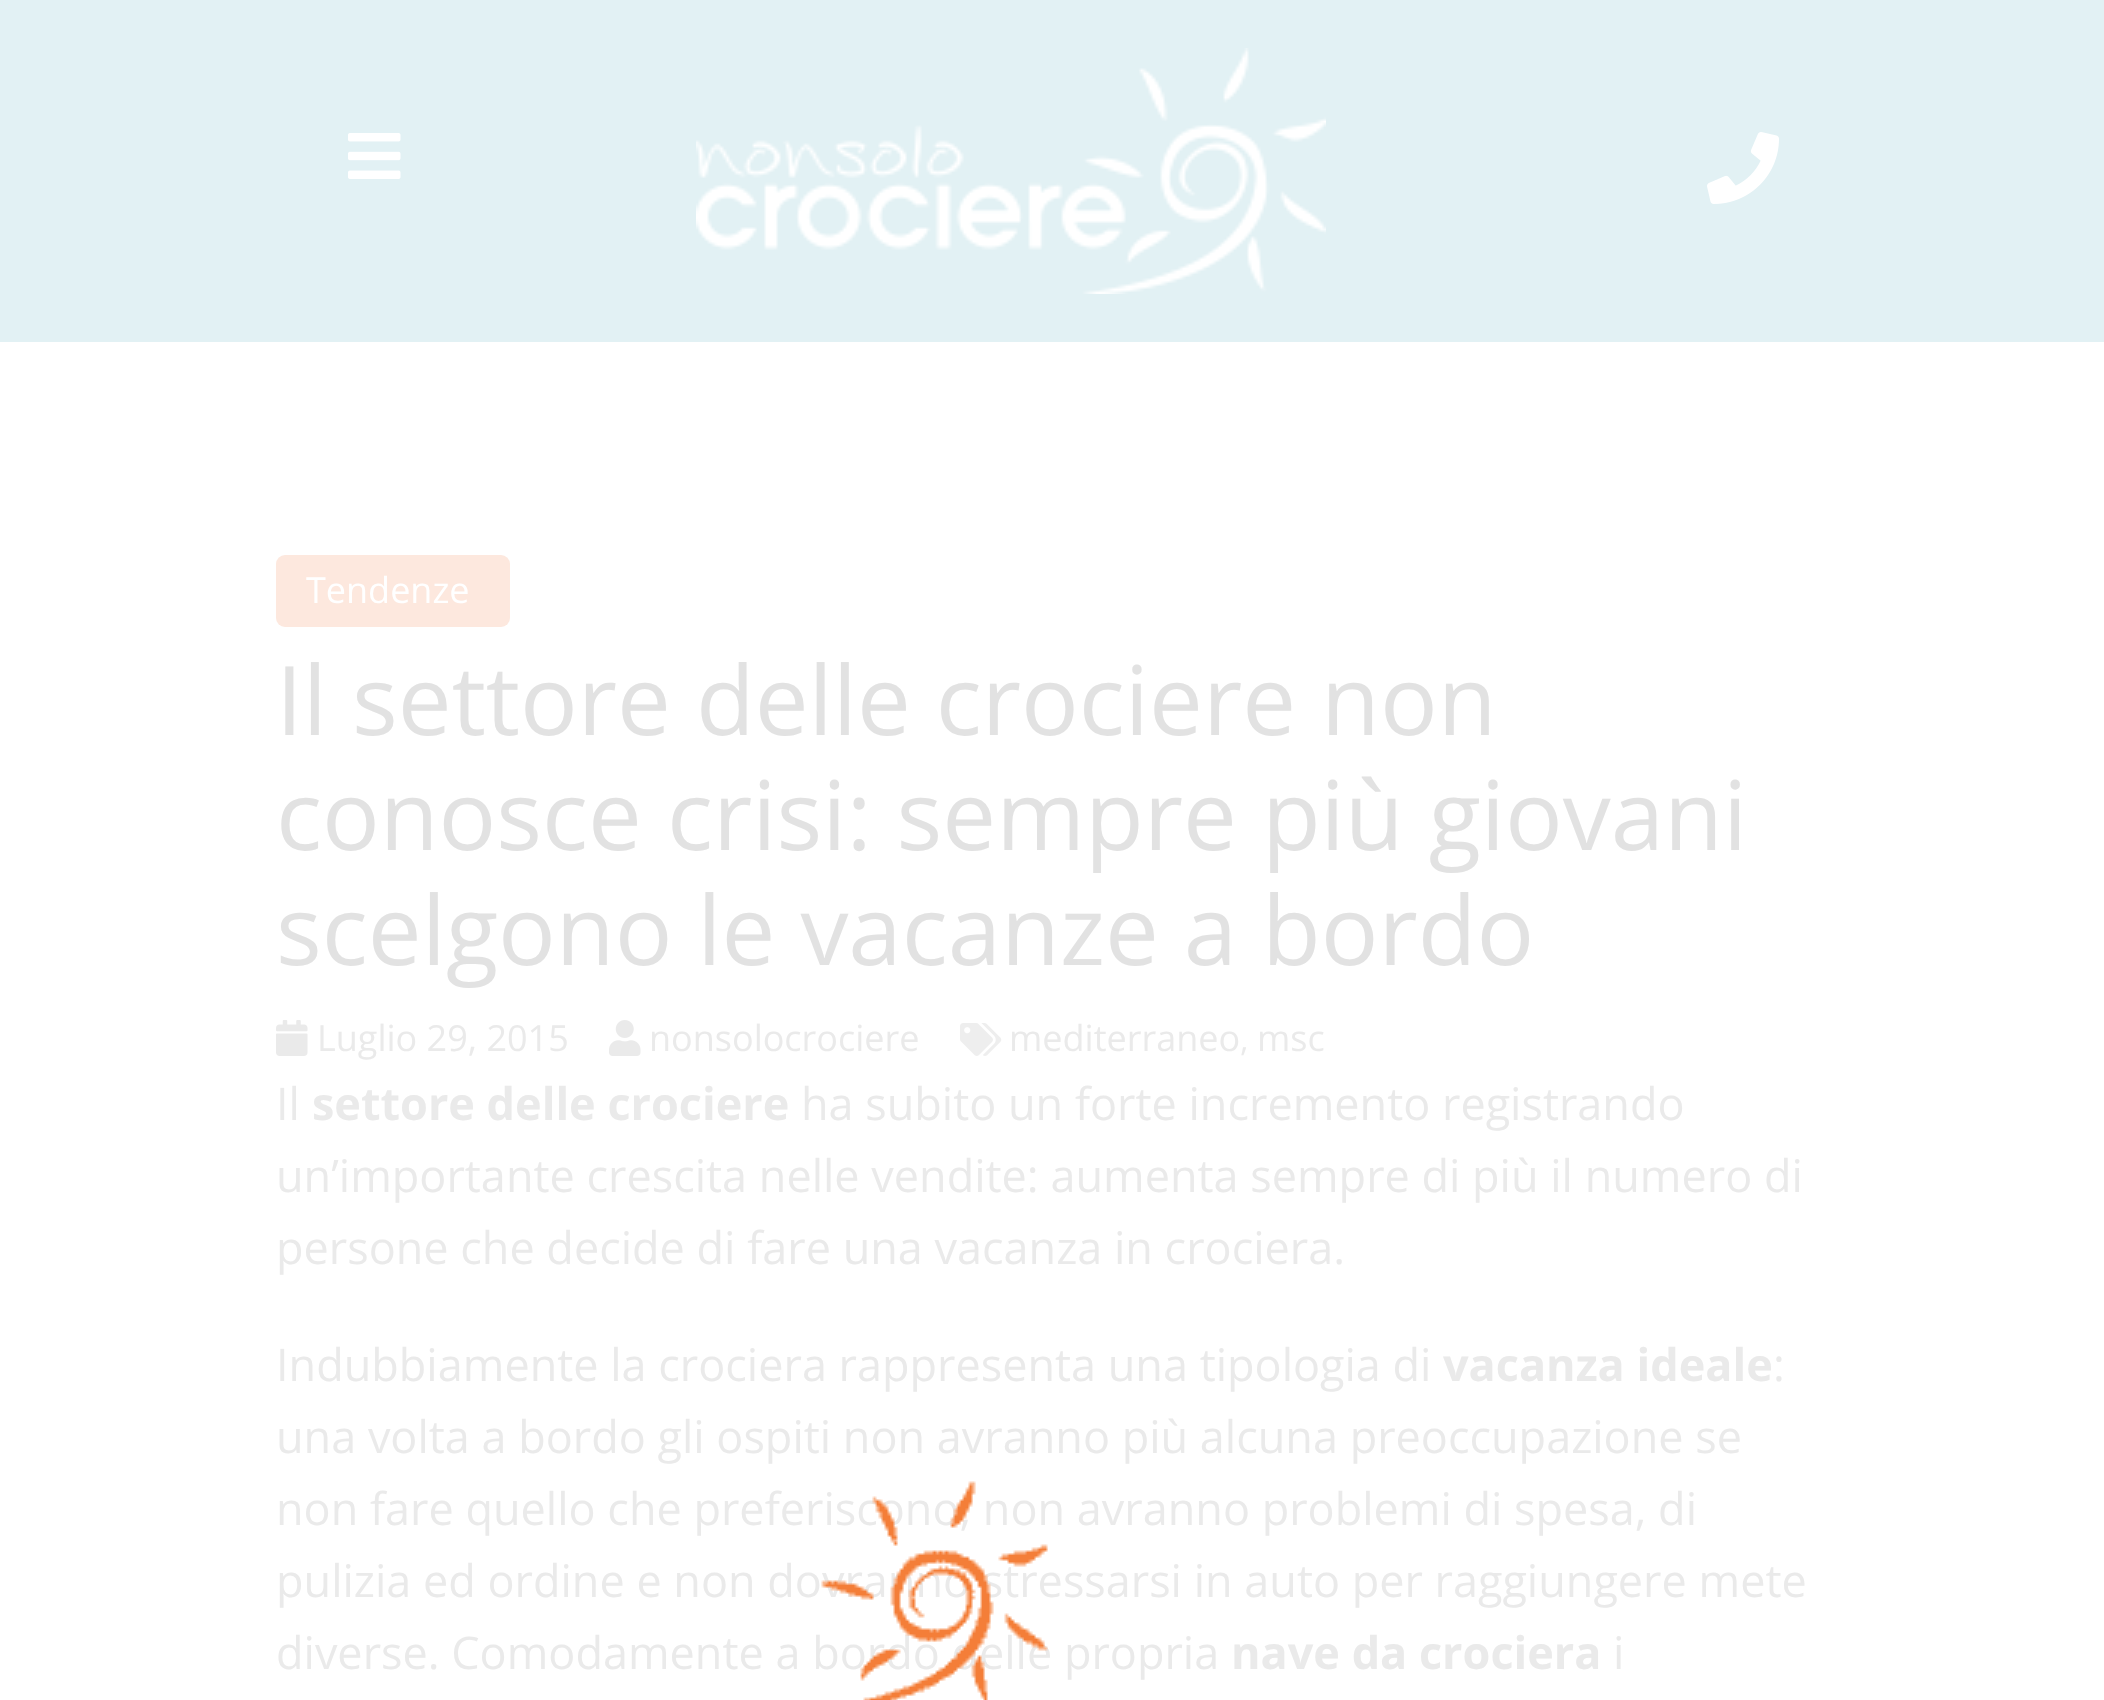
(async () => {
  const canvas = document.querySelector("canvas");
  canvas.width = 2104;
  canvas.height = 1700;
  const ctx = canvas.getContext("2d");
  ctx.miterLimit = 4;
  ctx.fontKerning = "normal";
  async function loadImage(src) {
    const img = new Image();
    img.src = src;
    await img.decode();
    return img;
  }

  ctx.fillStyle = "#ffffff";
  ctx.fillRect(0, 0, 2104, 1700);
  ctx.fillStyle = "#e2f1f4";
  ctx.fillRect(0, 0, 2104, 342);
  ctx.drawImage(await loadImage("img/1.png"), 348, 133, 53, 46);
  ctx.drawImage(await loadImage("img/2.png"), 696, 48, 630, 246);
  ctx.drawImage(await loadImage("img/3.png"), 1707, 132, 72, 72);
  ctx.fillStyle = "#fde8de";
  ctx.beginPath();
  ctx.roundRect(276, 555, 234, 72, 9);
  ctx.fill();
  ctx.drawImage(await loadImage("img/4.png"), 276, 1020, 32, 36);
  ctx.drawImage(await loadImage("img/5.png"), 609, 1020, 32, 36);
  ctx.drawImage(await loadImage("img/6.png"), 960, 1023, 42, 33);
  ctx.font = "36px Open Sans";
  ctx.fillStyle = "#ffffff";
  ctx.fillText("Tendenze", 306, 603);
  ctx.font = "96px Open Sans";
  ctx.fillStyle = "#e2e2e2";
  for (const [text, x, y] of [
    ["Il settore delle crociere non", 276, 735],
    ["conosce crisi: sempre più giovani", 276, 850],
    ["scelgono le vacanze a bordo", 276, 965],
  ]) {
    ctx.fillText(text, x, y);
  }
  ctx.font = "36px Open Sans";
  ctx.fillStyle = "#eaeaea";
  for (const [text, x, y] of [
    ["Luglio 29, 2015", 317, 1051],
    ["nonsolocrociere", 649, 1051],
    ["mediterraneo", 1009, 1051],
  ]) {
    ctx.fillText(text, x, y);
  }
  ctx.font = "33px Open Sans";
  ctx.fillText(",", 1240, 1051);
  ctx.font = "36px Open Sans";
  ctx.fillText("msc", 1257, 1051);
  ctx.font = "45px Open Sans";
  ctx.fillText("Il", 276, 1120);
  ctx.font = "bold 45px Open Sans";
  ctx.fillText("settore delle crociere", 312, 1120);
  ctx.font = "45px Open Sans";
  for (const [text, x, y] of [
    ["ha subito un forte incremento registrando", 801, 1120],
    ["un’importante crescita nelle vendite: aumenta sempre di più il numero di", 276, 1192],
    ["persone che decide di fare una vacanza in crociera.", 276, 1264],
    ["Indubbiamente la crociera rappresenta una tipologia di", 276, 1381],
  ]) {
    ctx.fillText(text, x, y);
  }
  ctx.font = "bold 45px Open Sans";
  ctx.fillText("vacanza ideale", 1443, 1381);
  ctx.font = "45px Open Sans";
  for (const [text, x, y] of [
    [":", 1773, 1381],
    ["una volta a bordo gli ospiti non avranno più alcuna preoccupazione se", 276, 1453],
    ["non fare quello che preferiscono, non avranno problemi di spesa, di", 276, 1525],
    ["pulizia ed ordine e non dovranno stressarsi in auto per raggiungere mete", 276, 1597],
    ["diverse. Comodamente a bordo delle propria", 276, 1669],
  ]) {
    ctx.fillText(text, x, y);
  }
  ctx.font = "bold 45px Open Sans";
  ctx.fillText("nave da crociera", 1231, 1669);
  ctx.font = "45px Open Sans";
  ctx.fillText("i", 1613, 1669);
  ctx.drawImage(await loadImage("img/7.png"), 821, 1481, 227, 219);
})();
